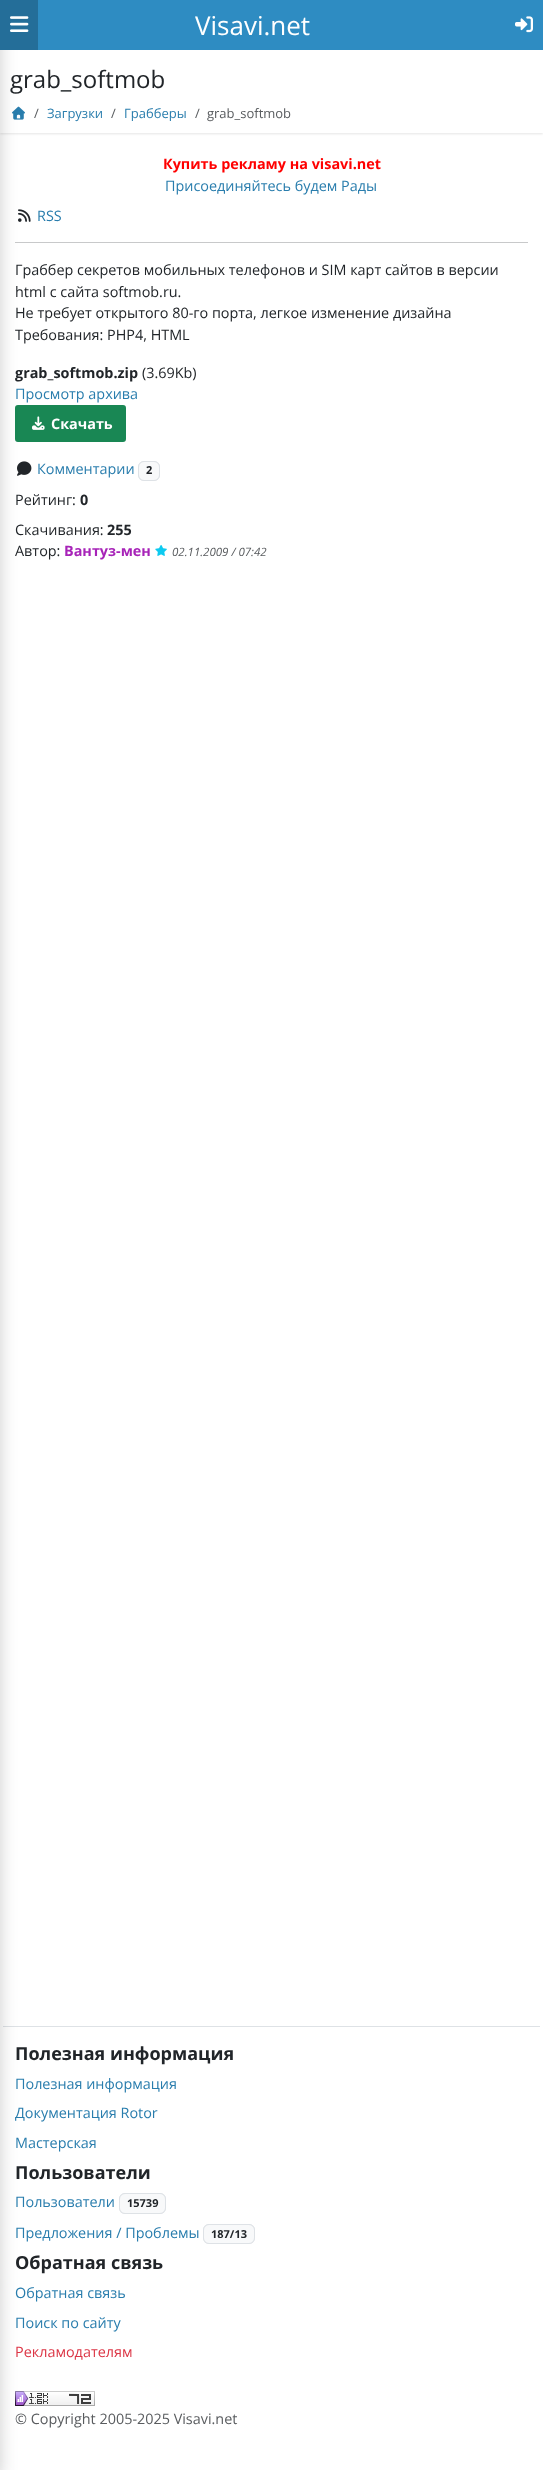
(async () => {
  const canvas = document.querySelector("canvas");
  canvas.width = 543;
  canvas.height = 2470;
  const ctx = canvas.getContext("2d");
  ctx.miterLimit = 4;
  ctx.fontKerning = "normal";
  async function loadImage(src) {
    const img = new Image();
    img.src = src;
    await img.decode();
    return img;
  }

  ctx.fillStyle = "#ffffff";
  ctx.fillRect(0, 0, 543, 2470);
  ctx.fillStyle = "rgba(0, 0, 0, 0.1)";
  ctx.filter = "blur(1px)";
  ctx.beginPath();
  ctx.rect(0, 36, 543, 98);
  ctx.fill();
  ctx.filter = "none";
  ctx.fillStyle = "#ffffff";
  ctx.fillRect(0, 50, 543, 83);
  ctx.drawImage(await loadImage("img/3.png"), 12, 106, 13, 14);
  ctx.drawImage(await loadImage("img/4.png"), 18, 209, 13, 13);
  ctx.fillStyle = "#c8c9ca";
  ctx.fillRect(15, 242, 513, 1);
  ctx.fillStyle = "#198754";
  ctx.beginPath();
  ctx.roundRect(16, 406, 109, 35, 2);
  ctx.fill();
  ctx.strokeStyle = "#198754";
  ctx.lineWidth = 2;
  ctx.stroke();
  ctx.drawImage(await loadImage("img/6.png"), 17, 461, 15, 15);
  ctx.fillStyle = "#dee2e6";
  ctx.fillRect(3, 2026, 537, 1);
  ctx.drawImage(await loadImage("img/8.png"), 15, 2391, 80, 15);
  ctx.fillStyle = "rgba(0, 0, 0, 0.2)";
  ctx.filter = "blur(8.5px)";
  ctx.beginPath();
  ctx.rect(-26, 8, 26, 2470);
  ctx.fill();
  ctx.filter = "none";
  ctx.fillStyle = "#2e8cc2";
  ctx.fillRect(38, 0, 505, 50);
  ctx.fillStyle = "#246e99";
  ctx.fillRect(0, 0, 38, 50);
  ctx.drawImage(await loadImage("img/1.png"), 10, 16, 19, 16);
  ctx.drawImage(await loadImage("img/2.png"), 515, 16, 18, 17);
  ctx.drawImage(await loadImage("img/5.png"), 32, 416, 13, 14);
  ctx.fillStyle = "#dee2e6";
  ctx.filter = "blur(0.5px)";
  ctx.beginPath();
  ctx.roundRect(138, 461, 22, 20, 6);
  ctx.fill();
  ctx.filter = "none";
  ctx.fillStyle = "#f8f9fa";
  ctx.beginPath();
  ctx.roundRect(138.5, 461.5, 21, 19, 5.5);
  ctx.fill();
  ctx.strokeStyle = "#dee2e6";
  ctx.lineWidth = 1;
  ctx.stroke();
  ctx.drawImage(await loadImage("img/7.png"), 155, 545, 12, 11);
  ctx.fillStyle = "#dee2e6";
  ctx.filter = "blur(0.5px)";
  ctx.beginPath();
  ctx.roundRect(119, 2193, 47, 21, 6);
  ctx.fill();
  ctx.filter = "none";
  ctx.fillStyle = "#f8f9fa";
  ctx.beginPath();
  ctx.roundRect(119.5, 2193.5, 46, 20, 5.5);
  ctx.fill();
  ctx.stroke();
  ctx.fillStyle = "#dee2e6";
  ctx.filter = "blur(0.5px)";
  ctx.beginPath();
  ctx.roundRect(203, 2224, 52, 20, 6);
  ctx.fill();
  ctx.filter = "none";
  ctx.fillStyle = "#f8f9fa";
  ctx.beginPath();
  ctx.roundRect(203.5, 2224.5, 51, 19, 5.5);
  ctx.fill();
  ctx.stroke();
  ctx.font = "26px Open Sans";
  ctx.fillStyle = "#ffffff";
  ctx.fillText("Visavi.net", 195, 35);
  ctx.font = "24px Open Sans";
  ctx.fillStyle = "#212529";
  ctx.fillText("grab_softmob", 10, 88);
  ctx.font = "13px Open Sans";
  ctx.fillStyle = "#595c5f";
  ctx.fillText("/", 34, 118);
  ctx.fillStyle = "#297dad";
  ctx.fillText("Загрузки", 47, 118);
  ctx.fillStyle = "#595c5f";
  ctx.fillText("/", 111, 118);
  ctx.fillStyle = "#297dad";
  ctx.fillText("Грабберы", 124, 118);
  ctx.fillStyle = "#595c5f";
  ctx.fillText("/", 195, 118);
  ctx.fillText("grab_softmob", 207, 118);
  ctx.font = "bold 14.4px Open Sans";
  ctx.fillStyle = "#ff0000";
  ctx.fillText("Купить рекламу на visavi.net", 163, 169);
  ctx.font = "14.4px Open Sans";
  ctx.fillStyle = "#297dad";
  ctx.fillText("Присоединяйтесь будем Рады", 165, 191);
  ctx.fillText("RSS", 37, 221);
  ctx.fillStyle = "#212529";
  for (const [text, x, y] of [
    ["Граббер секретов мобильных телефонов и SIM карт сайтов в версии", 15, 275],
    ["html с сайта softmob.ru.", 15, 297],
    ["Не требует открытого 80-го порта, легкое изменение дизайна", 15, 318],
    ["Требования: PHP4, HTML", 15, 340],
  ]) {
    ctx.fillText(text, x, y);
  }
  ctx.font = "bold 14.4px Open Sans";
  ctx.fillText("grab_softmob.zip", 15, 378);
  ctx.font = "14.4px Open Sans";
  ctx.fillText("(3.69Kb)", 142, 378);
  ctx.fillStyle = "#297dad";
  ctx.fillText("Просмотр архива", 15, 399);
  ctx.font = "bold 14.4px Open Sans";
  ctx.fillStyle = "#ffffff";
  ctx.fillText("Скачать", 51, 429);
  ctx.font = "14.4px Open Sans";
  ctx.fillStyle = "#297dad";
  ctx.fillText("Комментарии", 37, 474);
  ctx.font = "bold 11px Open Sans";
  ctx.fillStyle = "#212529";
  ctx.fillText("2", 146, 474);
  ctx.font = "14.4px Open Sans";
  ctx.fillText("Рейтинг:", 15, 505);
  ctx.font = "bold 14.4px Open Sans";
  ctx.fillText("0", 80, 505);
  ctx.font = "14.4px Open Sans";
  ctx.fillText("Скачивания:", 15, 535);
  ctx.font = "bold 14.4px Open Sans";
  ctx.fillText("255", 107, 535);
  ctx.font = "14.4px Open Sans";
  ctx.fillText("Автор:", 15, 556);
  ctx.font = "bold 14.4px Open Sans";
  ctx.fillStyle = "#a723b8";
  ctx.fillText("Вантуз-мен", 64, 556);
  ctx.font = "italic 11.5px Open Sans";
  ctx.fillStyle = "#595c5f";
  ctx.fillText("02.11.2009 / 07:42", 172, 556);
  ctx.font = "bold 18px Open Sans";
  ctx.fillStyle = "#212529";
  ctx.fillText("Полезная информация", 15, 2060);
  ctx.font = "14.4px Open Sans";
  ctx.fillStyle = "#297dad";
  for (const [text, x, y] of [
    ["Полезная информация", 15, 2089],
    ["Документация Rotor", 15, 2118],
    ["Мастерская", 15, 2148],
  ]) {
    ctx.fillText(text, x, y);
  }
  ctx.font = "bold 18px Open Sans";
  ctx.fillStyle = "#212529";
  ctx.fillText("Пользователи", 15, 2179);
  ctx.font = "14.4px Open Sans";
  ctx.fillStyle = "#297dad";
  ctx.fillText("Пользователи", 15, 2207);
  ctx.font = "bold 11px Open Sans";
  ctx.fillStyle = "#212529";
  ctx.fillText("15739", 127, 2207);
  ctx.font = "14.4px Open Sans";
  ctx.fillStyle = "#297dad";
  ctx.fillText("Предложения / Проблемы", 15, 2238);
  ctx.font = "bold 11px Open Sans";
  ctx.fillStyle = "#212529";
  ctx.fillText("187/13", 211, 2238);
  ctx.font = "bold 18px Open Sans";
  ctx.fillText("Обратная связь", 15, 2269);
  ctx.font = "14.4px Open Sans";
  ctx.fillStyle = "#297dad";
  ctx.fillText("Обратная связь", 15, 2298);
  ctx.fillText("Поиск по сайту", 15, 2328);
  ctx.fillStyle = "#dc3545";
  ctx.fillText("Рекламодателям", 15, 2357);
  ctx.fillStyle = "#595c5f";
  ctx.fillText("© Copyright 2005-2025 Visavi.net", 15, 2424);
})();
